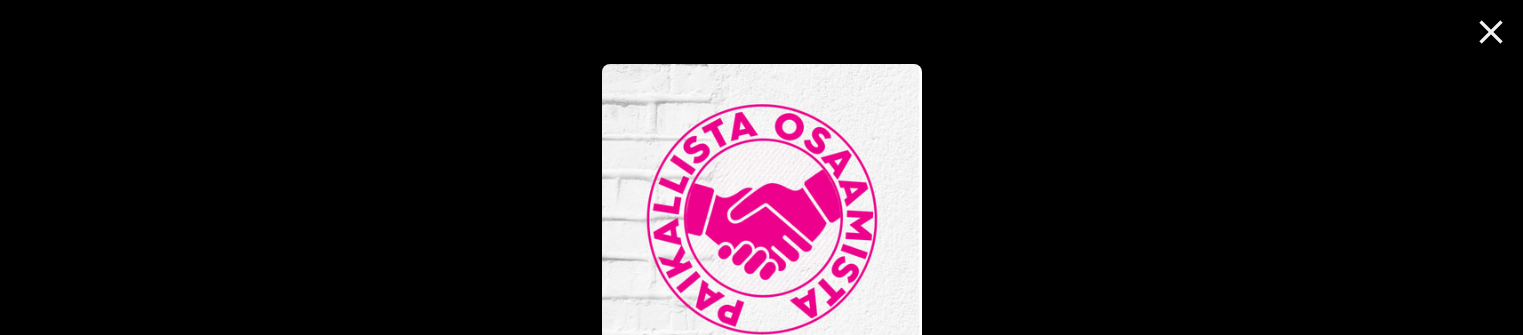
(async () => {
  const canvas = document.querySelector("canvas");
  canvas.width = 1523;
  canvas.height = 335;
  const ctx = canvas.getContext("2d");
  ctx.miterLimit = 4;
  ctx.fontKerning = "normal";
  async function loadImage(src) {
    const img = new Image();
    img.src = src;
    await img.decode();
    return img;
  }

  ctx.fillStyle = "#000000";
  ctx.fillRect(0, 0, 1523, 335);
  ctx.drawImage(await loadImage("img/1.png"), 1479, 20, 24, 24);
  ctx.drawImage(await loadImage("img/2.png"), 602, 64, 320, 271);
})();
